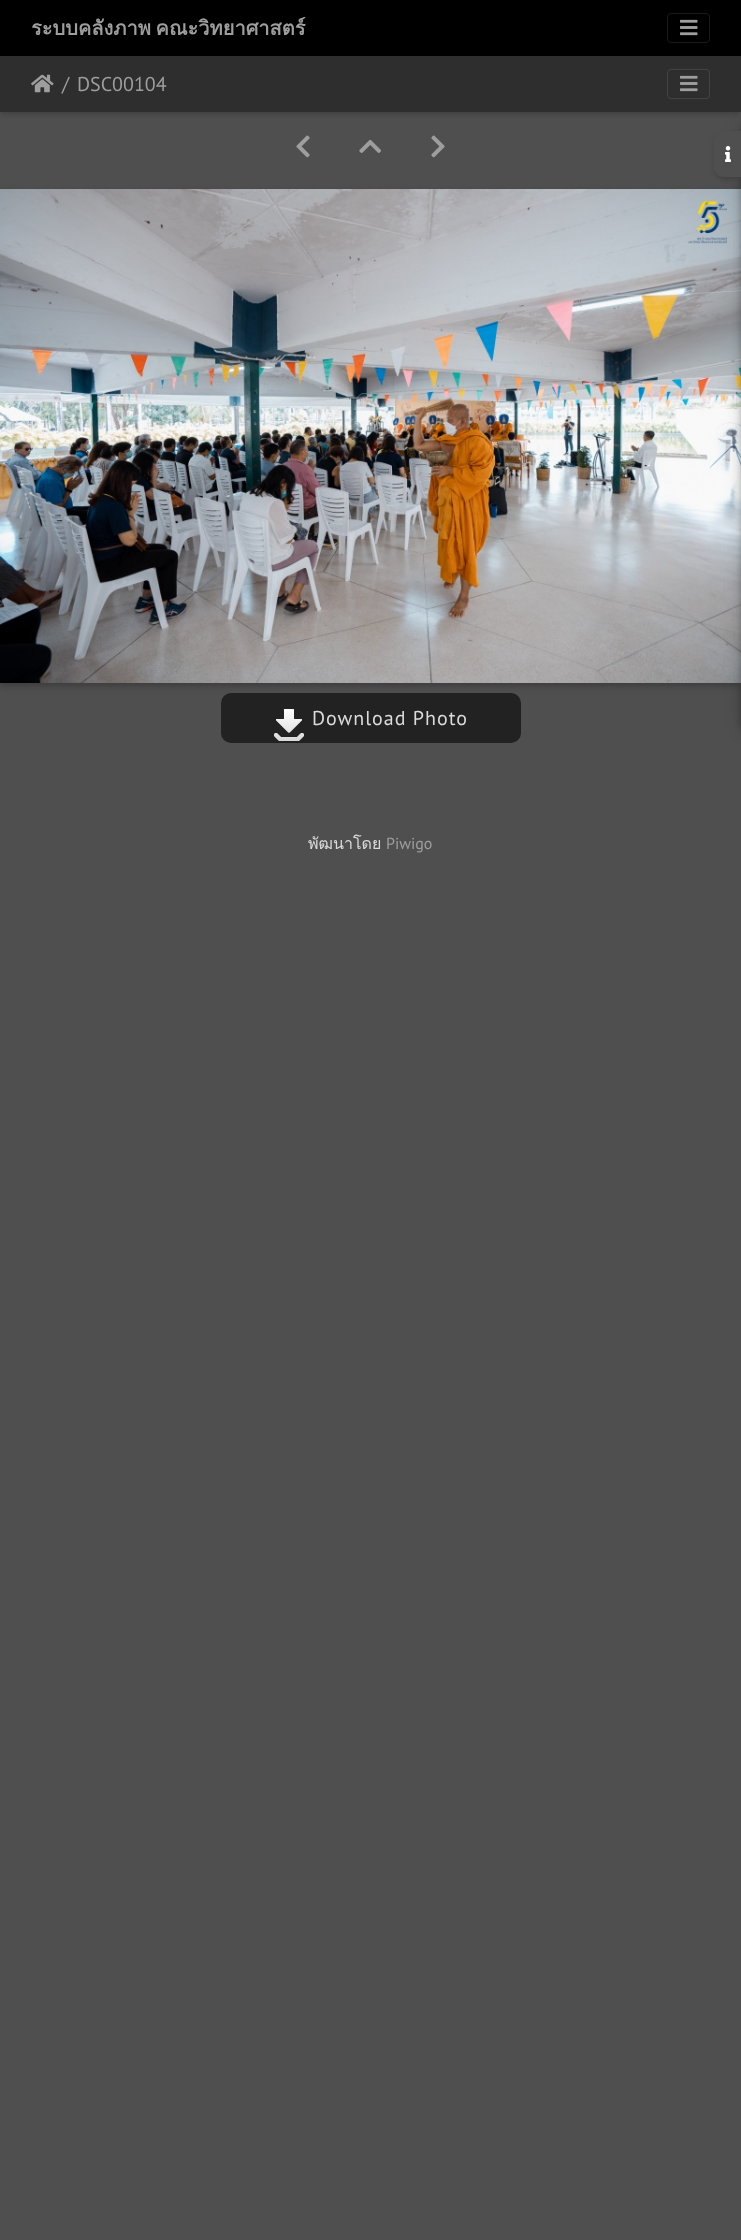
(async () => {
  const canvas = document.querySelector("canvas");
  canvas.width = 741;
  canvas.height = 2240;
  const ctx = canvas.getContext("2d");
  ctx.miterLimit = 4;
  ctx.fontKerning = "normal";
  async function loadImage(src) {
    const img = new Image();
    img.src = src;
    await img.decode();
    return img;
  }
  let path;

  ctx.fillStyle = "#4f4f4f";
  ctx.fillRect(0, 0, 741, 2240);
  ctx.fillStyle = "rgba(0, 0, 0, 0.2)";
  ctx.filter = "blur(2.5px)";
  ctx.beginPath();
  ctx.rect(1, 60, 739, 54);
  ctx.fill();
  ctx.filter = "none";
  ctx.fillStyle = "#000000";
  ctx.fillRect(0, 0, 741, 56);
  ctx.beginPath();
  ctx.roundRect(667.5, 13.5, 42, 29, 3.5);
  ctx.strokeStyle = "#1a1a1a";
  ctx.stroke();
  ctx.drawImage(await loadImage("img/1.png"), 680, 19, 18, 17);
  ctx.fillStyle = "#222222";
  ctx.beginPath();
  ctx.roundRect(221, 693, 300, 50, 10);
  ctx.fill();
  ctx.fillStyle = "rgba(0, 0, 0, 0.23)";
  ctx.filter = "blur(3px)";
  ctx.beginPath();
  ctx.rect(0, 192, 741, 494);
  ctx.fill();
  ctx.filter = "none";
  ctx.drawImage(await loadImage("img/8.png"), 0, 189, 741, 494);
  ctx.fillStyle = "rgba(0, 0, 0, 0.12)";
  ctx.filter = "blur(9px)";
  ctx.beginPath();
  ctx.roundRect(741, 122, 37, 608, 10);
  ctx.fill();
  ctx.filter = "none";
  ctx.fillStyle = "rgba(0, 0, 0, 0.14)";
  ctx.filter = "blur(5px)";
  ctx.beginPath();
  ctx.roundRect(741, 127, 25, 608, 10);
  ctx.fill();
  ctx.filter = "none";
  ctx.fillStyle = "#2e2e2e";
  ctx.fillRect(0, 56, 741, 56);
  ctx.drawImage(await loadImage("img/2.png"), 31, 74, 23, 19);
  ctx.beginPath();
  ctx.roundRect(667.5, 69.5, 42, 29, 3.5);
  ctx.strokeStyle = "#434343";
  ctx.stroke();
  ctx.drawImage(await loadImage("img/3.png"), 680, 75, 18, 17);
  ctx.drawImage(await loadImage("img/4.png"), 296, 135, 14, 23);
  ctx.drawImage(await loadImage("img/5.png"), 359, 139, 22, 14);
  ctx.drawImage(await loadImage("img/6.png"), 431, 135, 14, 23);
  ctx.fillStyle = "rgba(0, 0, 0, 0.2)";
  ctx.filter = "blur(2.5px)";
  ctx.beginPath();
  ctx.roundRect(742, 125, 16, 606, 9);
  ctx.fill();
  ctx.filter = "none";
  ctx.filter = "blur(2.5px)";
  ctx.beginPath();
  ctx.roundRect(715, 135, 25, 44, 9);
  ctx.fill();
  ctx.filter = "none";
  ctx.fillStyle = "#4f4f4f";
  ctx.beginPath();
  ctx.roundRect(714, 131, 27, 46, [10, 0, 0, 10]);
  ctx.fill();
  path = new Path2D("M724 131H741V177H724C718 177 714 173 714 167V141C714 135 718 131 724 131ZM724 132H741V176H724C719 176 715 172 715 167V141C715 136 719 132 724 132Z");
  ctx.fill(path, "evenodd");
  ctx.drawImage(await loadImage("img/7.png"), 725, 146, 6, 16);
  ctx.drawImage(await loadImage("img/9.png"), 274, 709, 30, 32);
  ctx.wordSpacing = "-2px";
  ctx.font = "bold 20px Loma";
  ctx.fillStyle = "#9e9e9e";
  ctx.fillText("ระบบคลังภาพ คณะวิทยาศาสตร์", 31, 35);
  ctx.wordSpacing = "0px";
  ctx.font = "20px PT Sans";
  ctx.fillText("/", 62, 91);
  ctx.fillText("DSC00104", 77, 91);
  ctx.letterSpacing = "1px";
  ctx.fillStyle = "#dbdbdb";
  ctx.fillText("Download Photo", 312, 725);
  ctx.letterSpacing = "0px";
  ctx.font = "16px Loma";
  ctx.fillText("พัฒนาโดย", 308, 849);
  ctx.font = "16px PT Sans";
  ctx.fillStyle = "#9e9e9e";
  ctx.fillText("Piwigo", 386, 849);
})();
